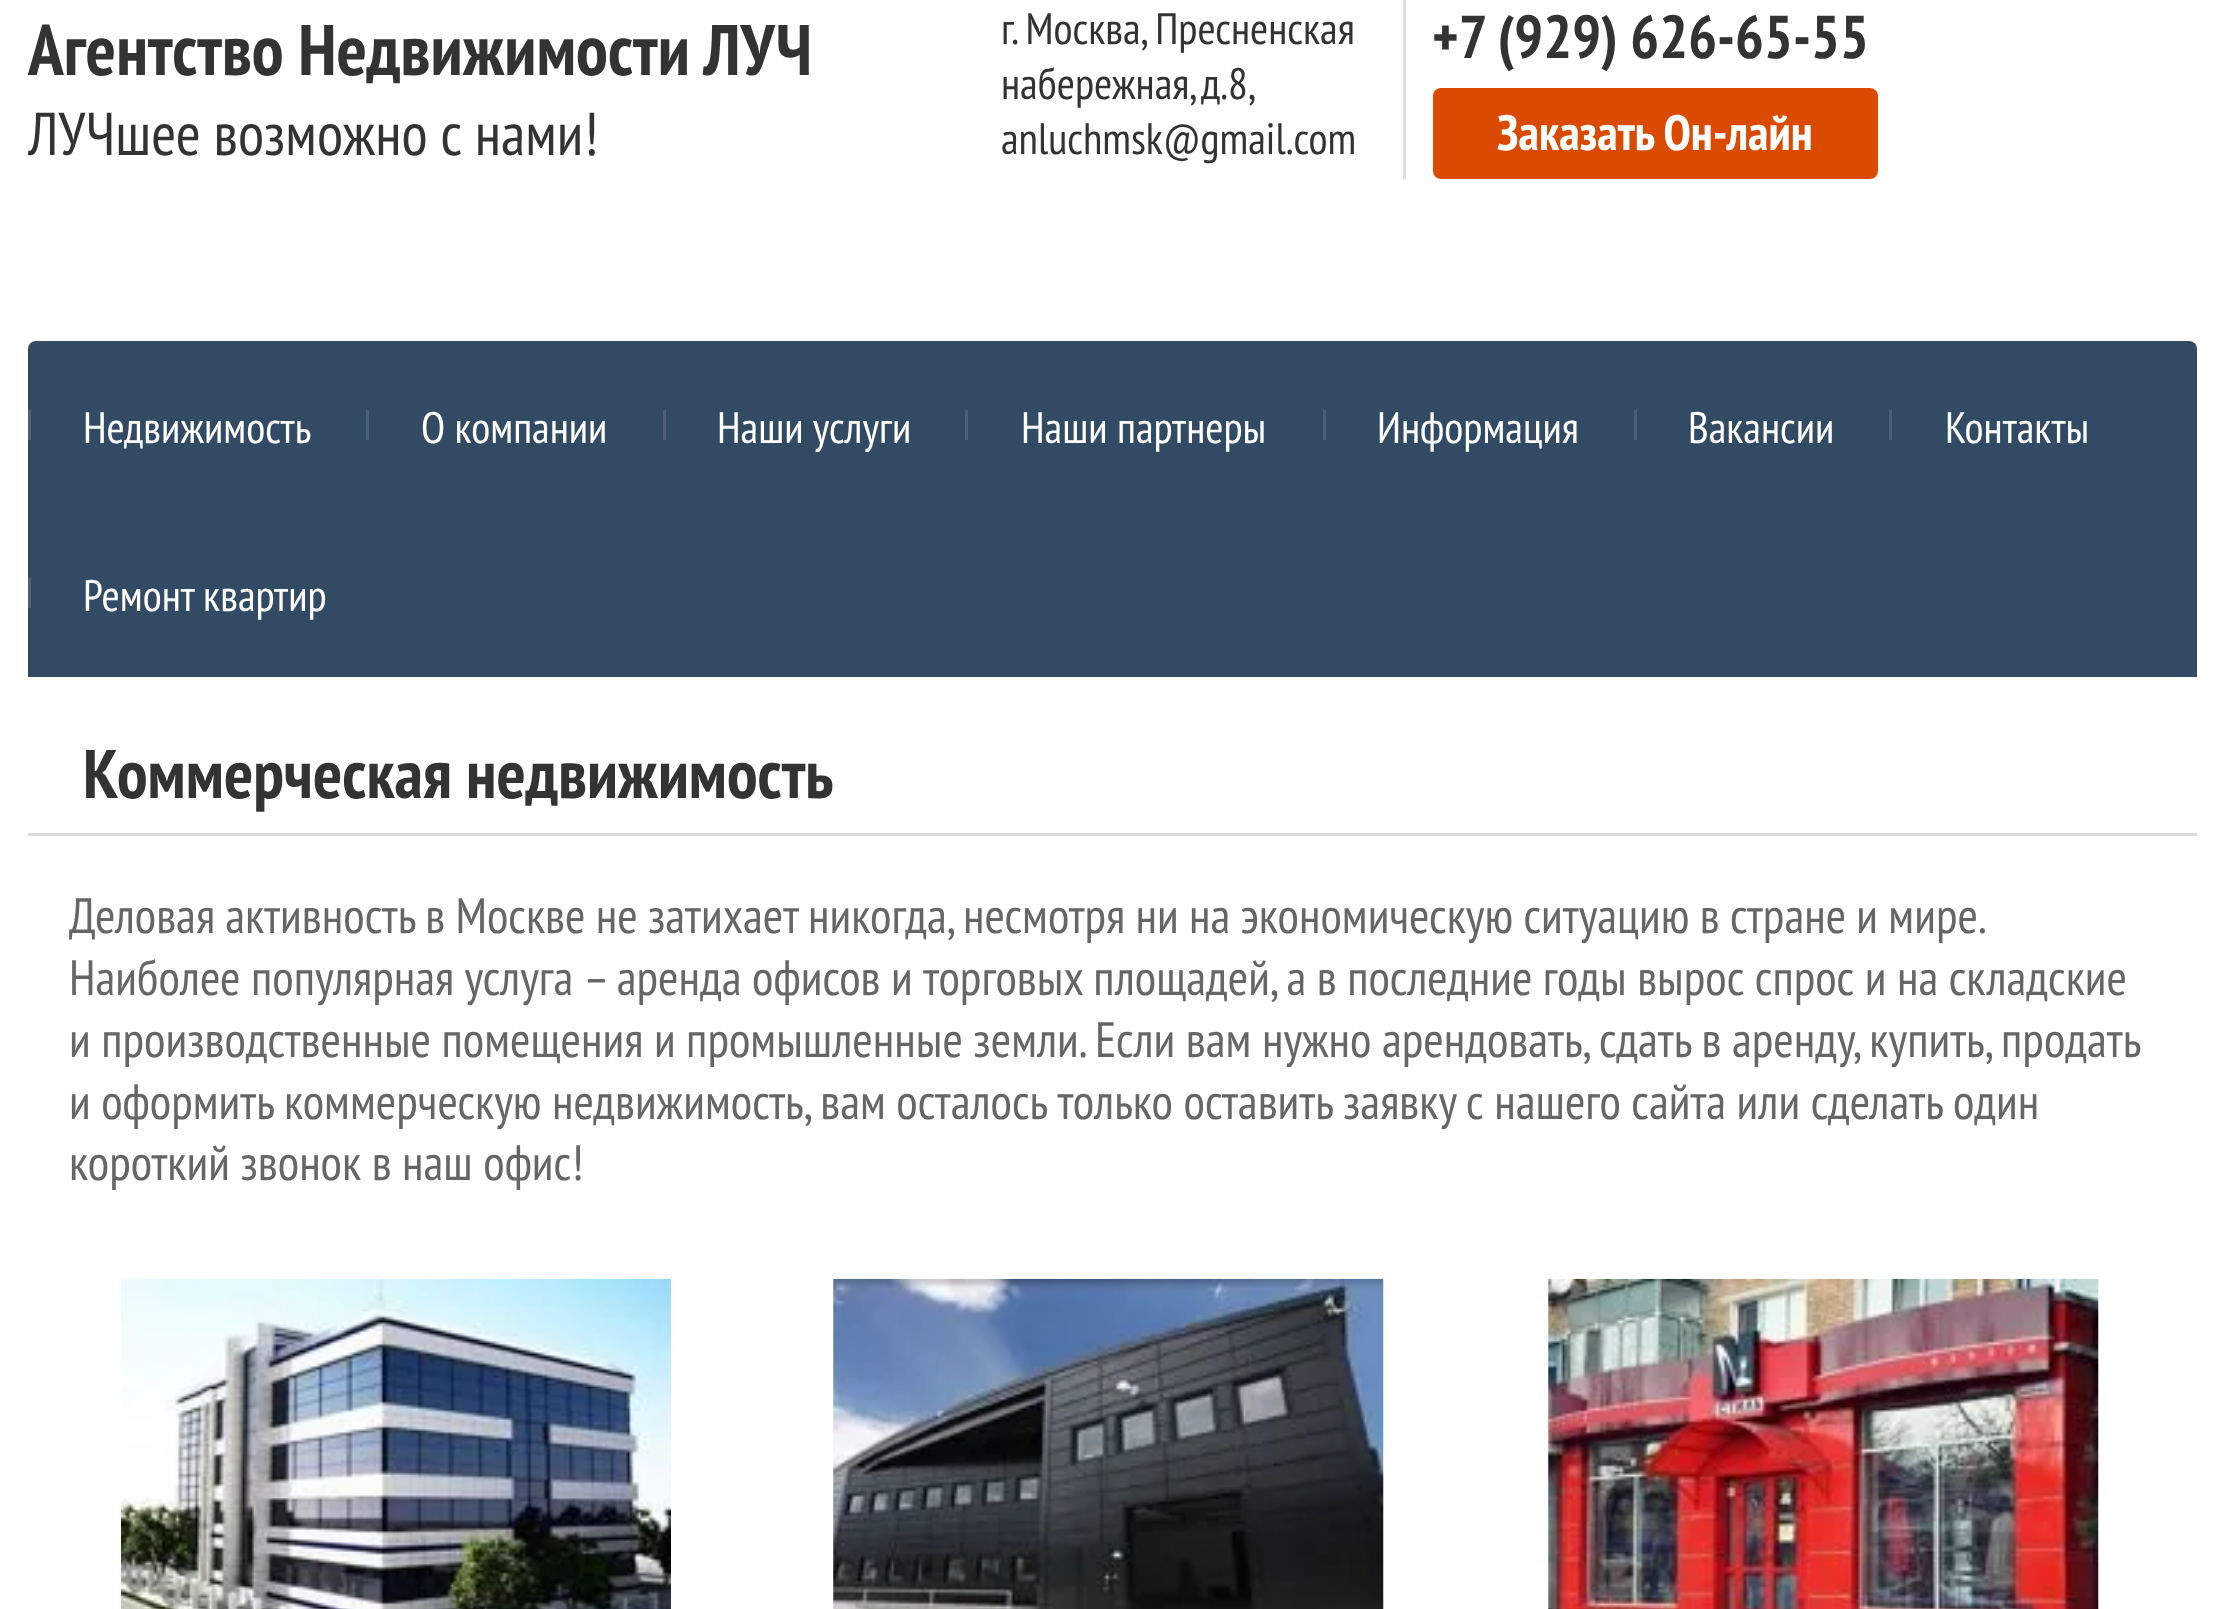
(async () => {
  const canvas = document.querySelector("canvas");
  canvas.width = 2223;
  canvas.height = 1609;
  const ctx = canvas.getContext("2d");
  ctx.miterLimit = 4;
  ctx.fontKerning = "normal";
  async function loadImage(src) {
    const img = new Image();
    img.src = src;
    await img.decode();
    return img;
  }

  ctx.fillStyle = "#ffffff";
  ctx.fillRect(0, 0, 2223, 1609);
  ctx.fillStyle = "#dedede";
  ctx.fillRect(1403, 0, 3, 179);
  ctx.fillStyle = "#da4a01";
  ctx.beginPath();
  ctx.roundRect(1433, 88, 445, 91, 8);
  ctx.fill();
  ctx.fillStyle = "#324a64";
  ctx.beginPath();
  ctx.roundRect(28, 341, 2169, 336, [8, 8, 0, 0]);
  ctx.fill();
  for (const [x, y, w, h, color] of [
    [28, 410, 3, 30, "#4c5f74"],
    [366, 410, 3, 30, "#4c5f74"],
    [663, 410, 3, 30, "#4c5f74"],
    [965, 410, 3, 30, "#4c5f74"],
    [1323, 410, 3, 30, "#4c5f74"],
    [1634, 410, 3, 30, "#4c5f74"],
    [1889, 410, 3, 30, "#4c5f74"],
    [28, 578, 3, 30, "#4c5f74"],
    [28, 833, 2169, 3, "#d9d9d9"],
  ]) {
    ctx.fillStyle = color;
    ctx.fillRect(x, y, w, h);
  }
  ctx.drawImage(await loadImage("img/1.png"), 121, 1278, 550, 331);
  ctx.drawImage(await loadImage("img/2.png"), 833, 1278, 551, 331);
  ctx.drawImage(await loadImage("img/3.png"), 1548, 1278, 551, 331);
  ctx.font = "bold 71.5px PT Sans Narrow";
  ctx.fillStyle = "#333333";
  ctx.fillText("Агентство Недвижимости ЛУЧ", 28, 75);
  ctx.font = "60.5px PT Sans Narrow";
  ctx.fillText("ЛУЧшее возможно с нами!", 28, 155);
  ctx.font = "44px PT Sans Narrow";
  ctx.fillText("г. Москва, Пресненская", 1001, 44);
  ctx.wordSpacing = "-3px";
  ctx.fillText("набережная, д.8,", 1001, 99);
  ctx.wordSpacing = "0px";
  ctx.fillText("anluchmsk@gmail.com", 1001, 154);
  ctx.font = "bold 60.5px PT Sans Narrow";
  ctx.fillText("+7 (929) 626-65-55", 1432, 58);
  ctx.font = "bold 49.5px PT Sans Narrow";
  ctx.fillStyle = "#ffffff";
  ctx.fillText("Заказать Он-лайн", 1497, 150);
  ctx.font = "44px PT Sans Narrow";
  for (const [text, x, y] of [
    ["Недвижимость", 83, 443],
    ["О компании", 421, 443],
    ["Наши услуги", 717, 443],
    ["Наши партнеры", 1021, 443],
    ["Информация", 1377, 443],
    ["Вакансии", 1688, 443],
    ["Контакты", 1945, 443],
    ["Ремонт квартир", 83, 611],
  ]) {
    ctx.fillText(text, x, y);
  }
  ctx.font = "bold 68.75px PT Sans Narrow";
  ctx.fillStyle = "#333333";
  ctx.fillText("Коммерческая недвижимость", 83, 798);
  ctx.wordSpacing = "-0.25px";
  ctx.font = "49.5px PT Sans Narrow";
  ctx.fillStyle = "#666666";
  ctx.fillText("Деловая активность в Москве не затихает никогда, несмотря ни на экономическую ситуацию в стране и мире.", 69, 933);
  ctx.wordSpacing = "0px";
  for (const [text, x, y] of [
    ["Наиболее популярная услуга – аренда офисов и торговых площадей, а в последние годы вырос спрос и на складские", 69, 995],
    ["и производственные помещения и промышленные земли. Если вам нужно арендовать, сдать в аренду, купить, продать", 69, 1057],
    ["и оформить коммерческую недвижимость, вам осталось только оставить заявку с нашего сайта или сделать один", 69, 1119],
    ["короткий звонок в наш офис!", 69, 1180],
  ]) {
    ctx.fillText(text, x, y);
  }
})();
